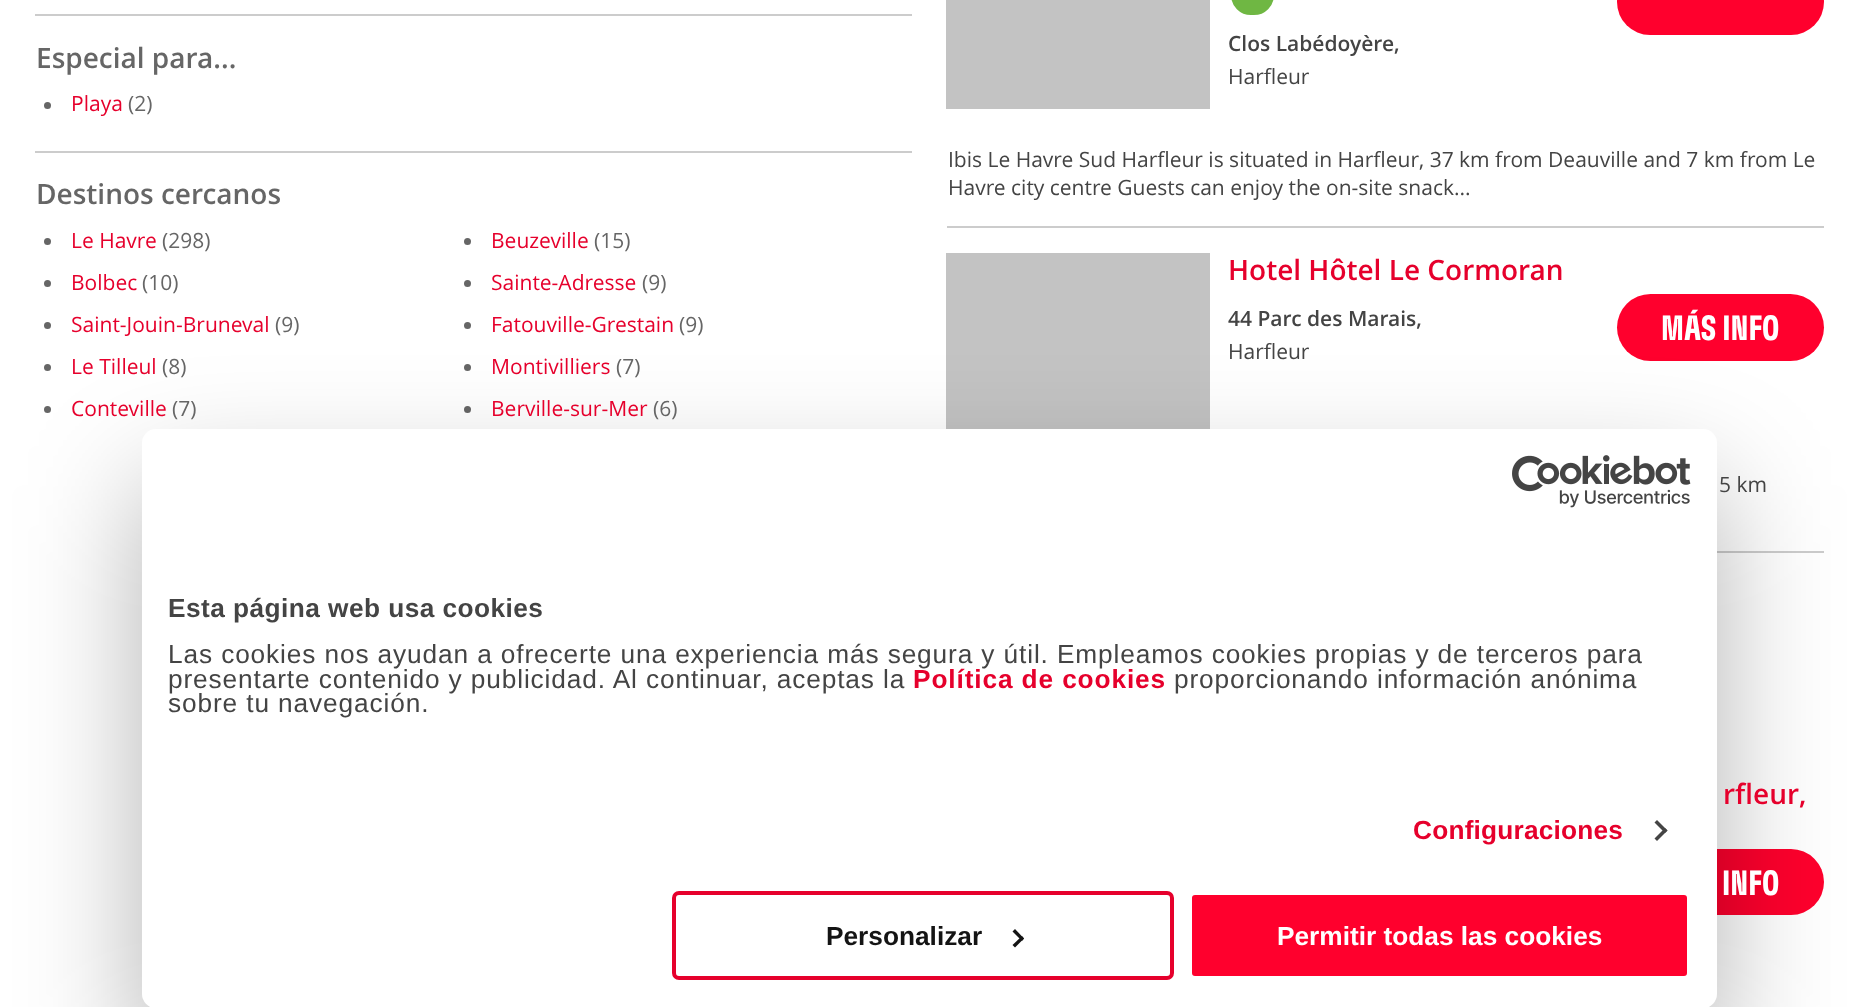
(async () => {
  const canvas = document.querySelector("canvas");
  canvas.width = 1858;
  canvas.height = 1007;
  const ctx = canvas.getContext("2d");
  ctx.miterLimit = 4;
  ctx.fontKerning = "normal";
  async function loadImage(src) {
    const img = new Image();
    img.src = src;
    await img.decode();
    return img;
  }
  let path;

  ctx.fillStyle = "#ffffff";
  ctx.fillRect(0, 0, 1858, 1007);
  ctx.fillStyle = "#cccccc";
  ctx.fillRect(35, 14, 877, 2);
  ctx.fillRect(35, 151, 877, 2);
  ctx.fillStyle = "#666666";
  ctx.beginPath();
  ctx.arc(47.5, 105.5, 3.5, 0, Math.PI * 2);
  ctx.fill();
  ctx.beginPath();
  ctx.arc(47.5, 241.5, 3.5, 0, Math.PI * 2);
  ctx.fill();
  ctx.beginPath();
  ctx.arc(467.5, 241.5, 3.5, 0, Math.PI * 2);
  ctx.fill();
  ctx.beginPath();
  ctx.arc(47.5, 283.5, 3.5, 0, Math.PI * 2);
  ctx.fill();
  ctx.beginPath();
  ctx.arc(467.5, 283.5, 3.5, 0, Math.PI * 2);
  ctx.fill();
  ctx.beginPath();
  ctx.arc(47.5, 325.5, 3.5, 0, Math.PI * 2);
  ctx.fill();
  ctx.beginPath();
  ctx.arc(467.5, 325.5, 3.5, 0, Math.PI * 2);
  ctx.fill();
  ctx.beginPath();
  ctx.arc(47.5, 367.5, 3.5, 0, Math.PI * 2);
  ctx.fill();
  ctx.beginPath();
  ctx.arc(467.5, 367.5, 3.5, 0, Math.PI * 2);
  ctx.fill();
  ctx.beginPath();
  ctx.arc(47.5, 409.5, 3.5, 0, Math.PI * 2);
  ctx.fill();
  ctx.beginPath();
  ctx.arc(467.5, 409.5, 3.5, 0, Math.PI * 2);
  ctx.fill();
  ctx.fillStyle = "#cccccc";
  ctx.fillRect(947, 226, 877, 2);
  ctx.fillStyle = "#c3c3c3";
  ctx.fillRect(946, 0, 264, 109);
  ctx.fillStyle = "#6fb743";
  ctx.beginPath();
  ctx.roundRect(1229, -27, 47, 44, 23);
  ctx.fill();
  ctx.strokeStyle = "#ffffff";
  ctx.lineWidth = 4;
  ctx.stroke();
  ctx.fillStyle = "#ff002d";
  ctx.beginPath();
  ctx.roundRect(1617, -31, 207, 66, 33);
  ctx.fill();
  ctx.fillStyle = "#cccccc";
  ctx.fillRect(1717, 551, 107, 2);
  ctx.fillStyle = "#c3c3c3";
  ctx.fillRect(946, 253, 264, 176);
  ctx.fillStyle = "#ff002d";
  ctx.beginPath();
  ctx.roundRect(1617, 294, 207, 67, 33.5);
  ctx.fill();
  ctx.beginPath();
  ctx.roundRect(1617, 849, 207, 66, 33);
  ctx.fill();
  ctx.fillStyle = "rgba(0, 0, 0, 0.3)";
  ctx.filter = "blur(59.5px)";
  ctx.beginPath();
  ctx.roundRect(142, 485, 1575, 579, 14);
  ctx.fill();
  ctx.filter = "none";
  ctx.fillStyle = "#ffffff";
  ctx.beginPath();
  ctx.roundRect(142, 429, 1575, 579, 14);
  ctx.fill();
  ctx.drawImage(await loadImage("img/1.png"), 1512, 455, 179, 53);
  ctx.fillStyle = "#444444";
  path = new Path2D("M1657 820L1667.5 830.5L1665 833L1654.5 822.5Z");
  ctx.fill(path);
  path = new Path2D("M1665 828L1667.5 830.5L1657 841L1654.5 838.5Z");
  ctx.fill(path);
  ctx.save();
  ctx.beginPath();
  ctx.roundRect(142, 429, 1575, 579, 14);
  ctx.clip();
  ctx.fillStyle = "#ffffff";
  ctx.fillRect(142, 1006, 1575, 1);
  ctx.restore();
  ctx.beginPath();
  ctx.roundRect(674, 893, 498, 85, 5);
  ctx.strokeStyle = "#e6002c";
  ctx.stroke();
  ctx.fillStyle = "#141414";
  path = new Path2D("M1015 929L1024 938.5L1022 941L1012.5 931.5Z");
  ctx.fill(path);
  path = new Path2D("M1022 936L1024 938.5L1015 947.5L1012.5 945Z");
  ctx.fill(path);
  ctx.fillStyle = "#ff002d";
  ctx.beginPath();
  ctx.roundRect(1190, 893, 499, 85, 5);
  ctx.fill();
  ctx.strokeStyle = "#ffffff";
  ctx.stroke();
  ctx.font = "600 28px Open Sans";
  ctx.fillStyle = "#666666";
  ctx.fillText("Especial para...", 36, 68);
  ctx.font = "21px Open Sans";
  ctx.fillStyle = "#e6002c";
  ctx.fillText("Playa", 71, 111);
  ctx.fillStyle = "#666666";
  ctx.fillText("(2)", 128, 111);
  ctx.font = "600 28px Open Sans";
  ctx.fillText("Destinos cercanos", 36, 204);
  ctx.font = "21px Open Sans";
  ctx.fillStyle = "#e6002c";
  ctx.fillText("Le Havre", 71, 248);
  ctx.fillStyle = "#666666";
  ctx.fillText("(298)", 162, 248);
  ctx.fillStyle = "#e6002c";
  ctx.fillText("Beuzeville", 491, 248);
  ctx.fillStyle = "#666666";
  ctx.fillText("(15)", 594, 248);
  ctx.fillStyle = "#e6002c";
  ctx.fillText("Bolbec", 71, 290);
  ctx.fillStyle = "#666666";
  ctx.fillText("(10)", 142, 290);
  ctx.fillStyle = "#e6002c";
  ctx.fillText("Sainte-Adresse", 491, 290);
  ctx.fillStyle = "#666666";
  ctx.fillText("(9)", 642, 290);
  ctx.fillStyle = "#e6002c";
  ctx.fillText("Saint-Jouin-Bruneval", 71, 332);
  ctx.fillStyle = "#666666";
  ctx.fillText("(9)", 275, 332);
  ctx.fillStyle = "#e6002c";
  ctx.fillText("Fatouville-Grestain", 491, 332);
  ctx.fillStyle = "#666666";
  ctx.fillText("(9)", 679, 332);
  ctx.fillStyle = "#e6002c";
  ctx.fillText("Le Tilleul", 71, 374);
  ctx.fillStyle = "#666666";
  ctx.fillText("(8)", 162, 374);
  ctx.fillStyle = "#e6002c";
  ctx.fillText("Montivilliers", 491, 374);
  ctx.fillStyle = "#666666";
  ctx.fillText("(7)", 616, 374);
  ctx.fillStyle = "#e6002c";
  ctx.fillText("Conteville", 71, 416);
  ctx.fillStyle = "#666666";
  ctx.fillText("(7)", 172, 416);
  ctx.fillStyle = "#e6002c";
  ctx.fillText("Berville-sur-Mer", 491, 416);
  ctx.fillStyle = "#666666";
  ctx.fillText("(6)", 653, 416);
  ctx.font = "600 21px Open Sans";
  ctx.fillStyle = "#444444";
  ctx.fillText("Clos Labédoyère,", 1228, 51);
  ctx.font = "21px Open Sans";
  for (const [text, x, y] of [
    ["Harfleur", 1228, 84],
    ["Ibis Le Havre Sud Harfleur is situated in Harfleur, 37 km from Deauville and 7 km from Le", 948, 167],
    ["Havre city centre Guests can enjoy the on-site snack...", 948, 195],
  ]) {
    ctx.fillText(text, x, y);
  }
  ctx.font = "600 28px Open Sans";
  ctx.fillStyle = "#e6002c";
  ctx.fillText("Hotel Hôtel Le Cormoran", 1228, 280);
  ctx.font = "600 21px Open Sans";
  ctx.fillStyle = "#444444";
  ctx.fillText("44 Parc des Marais,", 1228, 326);
  ctx.font = "21px Open Sans";
  ctx.fillText("Harfleur", 1228, 359);
  ctx.font = "bold 35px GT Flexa";
  ctx.fillStyle = "#ffffff";
  ctx.fillText("MÁS INFO", 1661, 340);
  ctx.font = "21px Open Sans";
  ctx.fillStyle = "#444444";
  ctx.fillText("5 km", 1719, 492);
  ctx.font = "600 28px Open Sans";
  ctx.fillStyle = "#e6002c";
  ctx.fillText("rfleur,", 1723, 804);
  ctx.font = "bold 35px GT Flexa";
  ctx.fillStyle = "#ffffff";
  ctx.fillText("INFO", 1722, 895);
  ctx.letterSpacing = "0.45px";
  ctx.font = "bold 26.25px Liberation Sans";
  ctx.fillStyle = "#444444";
  ctx.fillText("Esta página web usa cookies", 168, 617);
  ctx.letterSpacing = "0.88px";
  ctx.font = "26.25px Liberation Sans";
  ctx.fillText("Las cookies nos ayudan a ofrecerte una experiencia más segura y útil. Empleamos cookies propias y de terceros para", 168, 663);
  ctx.fillText("presentarte contenido y publicidad. Al continuar, aceptas la", 168, 688);
  ctx.font = "bold 26.25px Liberation Sans";
  ctx.fillStyle = "#e6002c";
  ctx.fillText("Política de cookies", 913, 688);
  ctx.font = "26.25px Liberation Sans";
  ctx.fillStyle = "#444444";
  ctx.fillText("proporcionando información anónima", 1174, 688);
  ctx.fillText("sobre tu navegación.", 168, 712);
  ctx.letterSpacing = "0.2px";
  ctx.font = "bold 26.25px Liberation Sans";
  ctx.fillStyle = "#e6002c";
  ctx.fillText("Configuraciones", 1413, 839);
  ctx.letterSpacing = "0px";
  ctx.fillStyle = "#141414";
  ctx.fillText("Personalizar", 826, 945);
  ctx.fillStyle = "#ffffff";
  ctx.fillText("Permitir todas las cookies", 1277, 945);
})();
